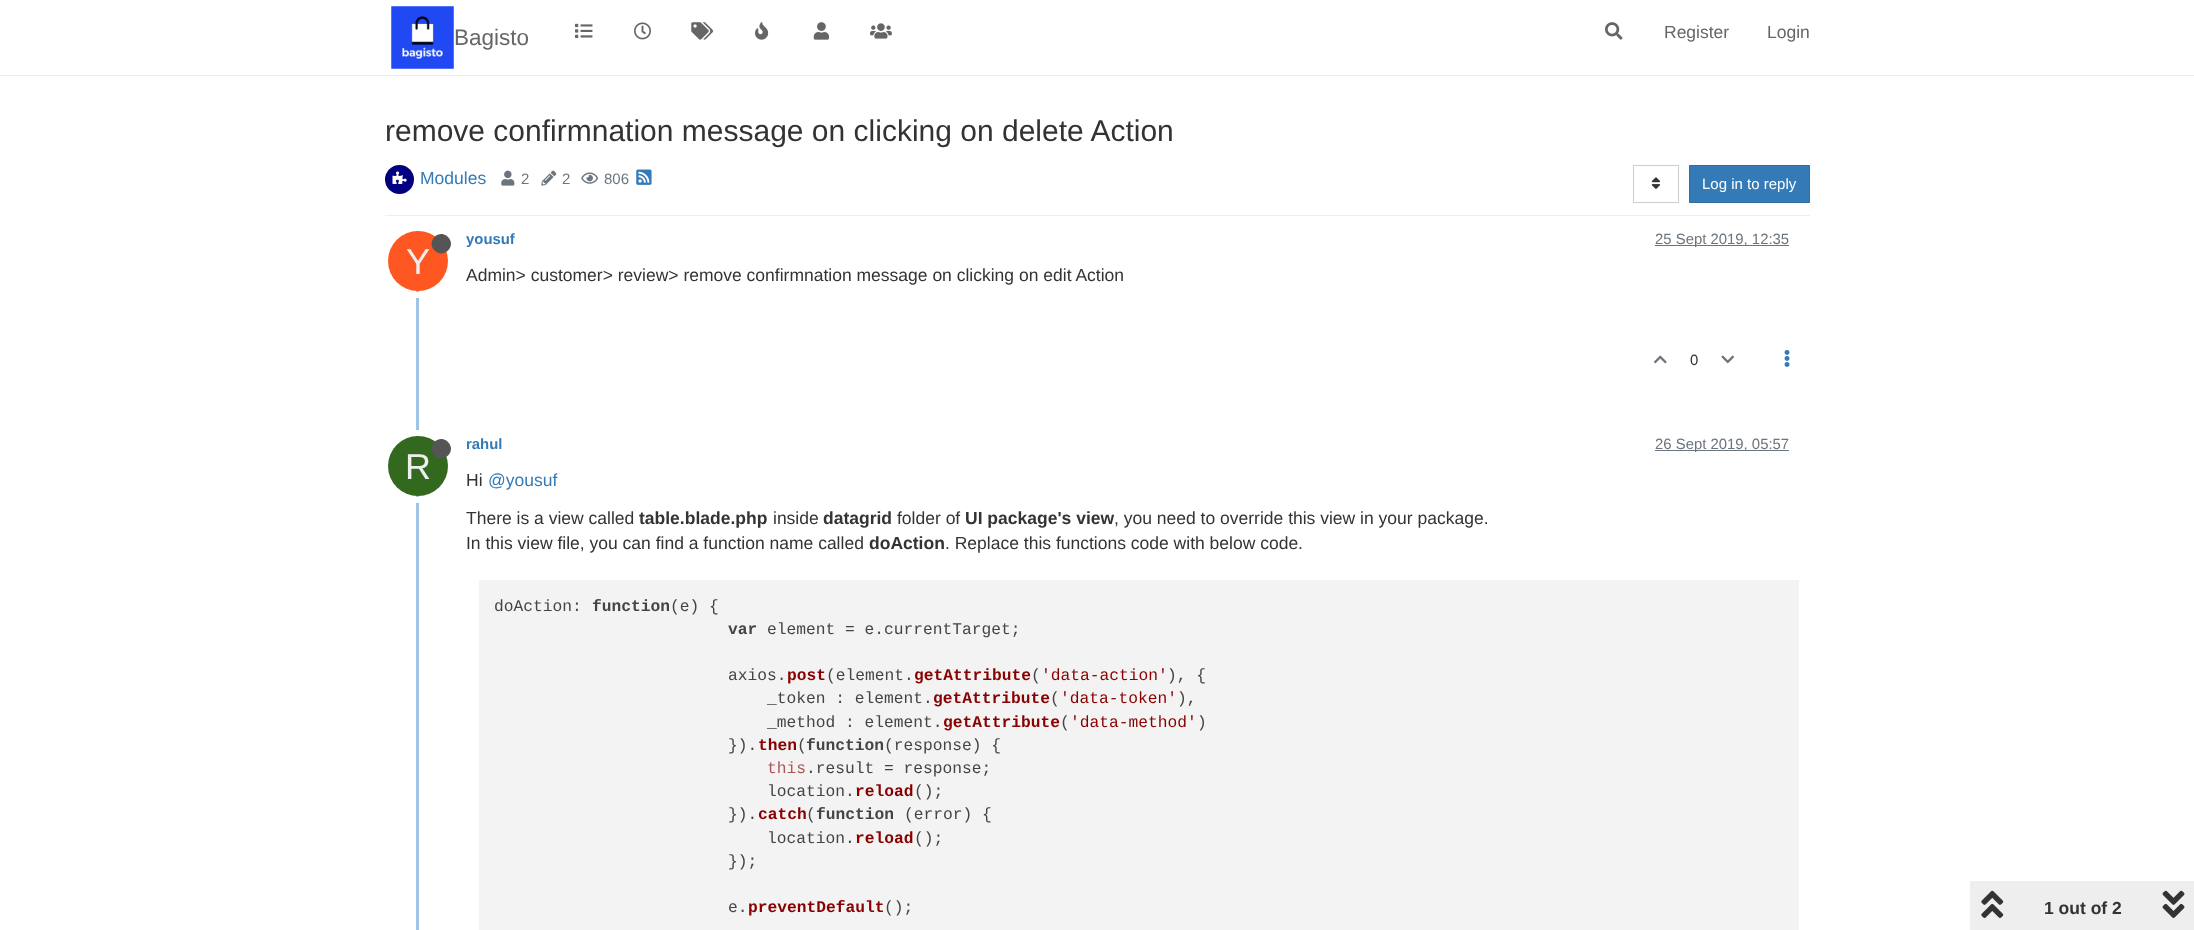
(async () => {
  const canvas = document.querySelector("canvas");
  canvas.width = 2194;
  canvas.height = 930;
  const ctx = canvas.getContext("2d");
  ctx.miterLimit = 4;
  ctx.fontKerning = "normal";
  async function loadImage(src) {
    const img = new Image();
    img.src = src;
    await img.decode();
    return img;
  }
  let path;

  ctx.fillStyle = "#ffffff";
  ctx.fillRect(0, 0, 2194, 930);
  ctx.fillStyle = "#eeeeee";
  ctx.fillRect(0, 75, 2194, 1);
  ctx.drawImage(await loadImage("img/1.png"), 391, 6, 63, 63);
  ctx.drawImage(await loadImage("img/2.png"), 575, 23, 18, 16);
  ctx.drawImage(await loadImage("img/3.png"), 634, 22, 17, 18);
  ctx.drawImage(await loadImage("img/4.png"), 691, 22, 23, 18);
  ctx.drawImage(await loadImage("img/5.png"), 755, 22, 14, 18);
  ctx.drawImage(await loadImage("img/6.png"), 813, 22, 17, 18);
  ctx.drawImage(await loadImage("img/7.png"), 870, 23, 22, 16);
  ctx.drawImage(await loadImage("img/8.png"), 1605, 22, 18, 18);
  ctx.fillRect(385, 215, 1425, 1);
  ctx.fillStyle = "#000080";
  ctx.beginPath();
  ctx.arc(399.5, 179.5, 14.5, 0, Math.PI * 2);
  ctx.fill();
  ctx.drawImage(await loadImage("img/9.png"), 392, 171, 15, 14);
  ctx.drawImage(await loadImage("img/10.png"), 501, 170, 14, 16);
  ctx.drawImage(await loadImage("img/11.png"), 541, 170, 16, 16);
  ctx.drawImage(await loadImage("img/12.png"), 581, 172, 18, 12);
  ctx.drawImage(await loadImage("img/13.png"), 636, 169, 16, 16);
  ctx.strokeStyle = "#cccccc";
  ctx.strokeRect(1633.5, 165.5, 45, 37);
  ctx.drawImage(await loadImage("img/14.png"), 1651, 177, 10, 12);
  ctx.fillStyle = "#337ab7";
  ctx.beginPath();
  ctx.rect(1689.5, 165.5, 120, 37);
  ctx.fill();
  ctx.strokeStyle = "#2e6da4";
  ctx.stroke();
  ctx.fillStyle = "#a0c4e4";
  ctx.fillRect(416, 229, 3, 701);
  ctx.fillStyle = "#6c757d";
  ctx.fillRect(1655, 245, 134, 1);
  ctx.beginPath();
  ctx.arc(417.5, 261.5, 33.5, 0, Math.PI * 2);
  ctx.strokeStyle = "#ffffff";
  ctx.lineWidth = 6;
  ctx.stroke();
  ctx.fillStyle = "#ff5722";
  ctx.beginPath();
  ctx.arc(418, 261, 30, 0, Math.PI * 2);
  ctx.fill();
  ctx.fillStyle = "#555555";
  path = new Path2D("M434.5 237C443.5 228 457 241.5 448 250.5C439 259.5 425.5 246 434.5 237Z");
  ctx.fill(path);
  ctx.drawImage(await loadImage("img/15.png"), 1654, 355, 13, 9);
  ctx.drawImage(await loadImage("img/16.png"), 1721, 355, 13, 9);
  ctx.drawImage(await loadImage("img/17.png"), 1784, 350, 6, 17);
  ctx.fillStyle = "#6c757d";
  ctx.fillRect(1655, 450, 134, 1);
  ctx.beginPath();
  ctx.arc(417.5, 466.5, 33.5, 0, Math.PI * 2);
  ctx.stroke();
  ctx.fillStyle = "#33691e";
  ctx.beginPath();
  ctx.arc(418, 466, 30, 0, Math.PI * 2);
  ctx.fill();
  ctx.fillStyle = "#555555";
  path = new Path2D("M434.5 442C443.5 433 457 446.5 448 455.5C439 464.5 425.5 451 434.5 442Z");
  ctx.fill(path);
  ctx.fillStyle = "#f3f3f3";
  ctx.fillRect(479, 580, 1320, 350);
  ctx.fillStyle = "#eeeeee";
  ctx.fillRect(1970, 881, 224, 49);
  ctx.drawImage(await loadImage("img/18.png"), 1981, 890, 23, 28);
  ctx.drawImage(await loadImage("img/19.png"), 2162, 890, 23, 28);
  ctx.font = "22.5px Liberation Sans";
  ctx.fillStyle = "#666666";
  ctx.fillText("Bagisto", 454, 45);
  ctx.font = "17.5px Liberation Sans";
  ctx.fillText("Register", 1664, 38);
  ctx.fillText("Login", 1767, 38);
  ctx.font = "30px Liberation Sans";
  ctx.fillStyle = "#333333";
  ctx.fillText("remove confirmnation message on clicking on delete Action", 385, 141);
  ctx.font = "17.5px Liberation Sans";
  ctx.fillStyle = "#337ab7";
  ctx.fillText("Modules", 420, 184);
  ctx.font = "15px Liberation Sans";
  ctx.fillStyle = "#6c757d";
  for (const [text, x, y] of [
    ["2", 521, 184],
    ["2", 562, 184],
    ["806", 604, 184],
  ]) {
    ctx.fillText(text, x, y);
  }
  ctx.fillStyle = "#ffffff";
  ctx.fillText("Log in to reply", 1702, 189);
  ctx.font = "bold 14.9px Liberation Sans";
  ctx.fillStyle = "#337ab7";
  ctx.fillText("yousuf", 466, 244);
  ctx.font = "14.9px Liberation Sans";
  ctx.fillStyle = "#6c757d";
  ctx.fillText("25 Sept 2019, 12:35", 1655, 244);
  ctx.font = "36px Liberation Sans";
  ctx.fillStyle = "#eeeeee";
  ctx.fillText("Y", 406, 274);
  ctx.font = "17.5px Liberation Sans";
  ctx.fillStyle = "#333333";
  ctx.fillText("Admin> customer> review> remove confirmnation message on clicking on edit Action", 466, 281);
  ctx.font = "14.9px Liberation Sans";
  ctx.fillText("0", 1690, 365);
  ctx.font = "bold 14.9px Liberation Sans";
  ctx.fillStyle = "#337ab7";
  ctx.fillText("rahul", 466, 449);
  ctx.font = "14.9px Liberation Sans";
  ctx.fillStyle = "#6c757d";
  ctx.fillText("26 Sept 2019, 05:57", 1655, 449);
  ctx.font = "36px Liberation Sans";
  ctx.fillStyle = "#eeeeee";
  ctx.fillText("R", 405, 479);
  ctx.font = "17.5px Liberation Sans";
  ctx.fillStyle = "#333333";
  ctx.fillText("Hi", 466, 486);
  ctx.fillStyle = "#337ab7";
  ctx.fillText("@yousuf", 488, 486);
  ctx.fillStyle = "#333333";
  ctx.fillText("There is a view called", 466, 524);
  ctx.font = "bold 17.5px Liberation Sans";
  ctx.fillText("table.blade.php", 639, 524);
  ctx.font = "17.5px Liberation Sans";
  ctx.fillText("inside", 773, 524);
  ctx.font = "bold 17.5px Liberation Sans";
  ctx.fillText("datagrid", 823, 524);
  ctx.font = "17.5px Liberation Sans";
  ctx.fillText("folder of", 897, 524);
  ctx.font = "bold 17.5px Liberation Sans";
  ctx.fillText("UI package's view", 965, 524);
  ctx.font = "17.5px Liberation Sans";
  ctx.fillText(", you need to override this view in your package.", 1114, 524);
  ctx.fillText("In this view file, you can find a function name called", 466, 549);
  ctx.font = "bold 17.5px Liberation Sans";
  ctx.fillText("doAction", 869, 549);
  ctx.font = "17.5px Liberation Sans";
  ctx.fillText(". Replace this functions code with below code.", 945, 549);
  ctx.font = "16.25px Liberation Mono";
  ctx.fillStyle = "#444444";
  ctx.fillText("doAction:", 494, 611);
  ctx.font = "bold 16.25px Liberation Mono";
  ctx.fillText("function", 592, 611);
  ctx.font = "16.25px Liberation Mono";
  ctx.fillText("(e) {", 670, 611);
  ctx.font = "bold 16.25px Liberation Mono";
  ctx.fillText("var", 728, 634);
  ctx.font = "16.25px Liberation Mono";
  ctx.fillText("element = e.currentTarget;", 767, 634);
  ctx.fillText("axios.", 728, 680);
  ctx.font = "bold 16.25px Liberation Mono";
  ctx.fillStyle = "#880000";
  ctx.fillText("post", 787, 680);
  ctx.font = "16.25px Liberation Mono";
  ctx.fillStyle = "#444444";
  ctx.fillText("(element.", 826, 680);
  ctx.font = "bold 16.25px Liberation Mono";
  ctx.fillStyle = "#880000";
  ctx.fillText("getAttribute", 914, 680);
  ctx.font = "16.25px Liberation Mono";
  ctx.fillStyle = "#444444";
  ctx.fillText("(", 1031, 680);
  ctx.fillStyle = "#880000";
  ctx.fillText("'data-action'", 1041, 680);
  ctx.fillStyle = "#444444";
  ctx.fillText("), {", 1167, 680);
  ctx.fillText("_token : element.", 767, 703);
  ctx.font = "bold 16.25px Liberation Mono";
  ctx.fillStyle = "#880000";
  ctx.fillText("getAttribute", 933, 703);
  ctx.font = "16.25px Liberation Mono";
  ctx.fillStyle = "#444444";
  ctx.fillText("(", 1050, 703);
  ctx.fillStyle = "#880000";
  ctx.fillText("'data-token'", 1060, 703);
  ctx.fillStyle = "#444444";
  ctx.fillText("),", 1177, 703);
  ctx.fillText("_method : element.", 767, 727);
  ctx.font = "bold 16.25px Liberation Mono";
  ctx.fillStyle = "#880000";
  ctx.fillText("getAttribute", 943, 727);
  ctx.font = "16.25px Liberation Mono";
  ctx.fillStyle = "#444444";
  ctx.fillText("(", 1060, 727);
  ctx.fillStyle = "#880000";
  ctx.fillText("'data-method'", 1070, 727);
  ctx.fillStyle = "#444444";
  ctx.fillText(")", 1197, 727);
  ctx.fillText("}).", 728, 750);
  ctx.font = "bold 16.25px Liberation Mono";
  ctx.fillStyle = "#880000";
  ctx.fillText("then", 758, 750);
  ctx.font = "16.25px Liberation Mono";
  ctx.fillStyle = "#444444";
  ctx.fillText("(", 797, 750);
  ctx.font = "bold 16.25px Liberation Mono";
  ctx.fillText("function", 806, 750);
  ctx.font = "16.25px Liberation Mono";
  ctx.fillText("(response) {", 884, 750);
  ctx.fillStyle = "#ab5656";
  ctx.fillText("this", 767, 773);
  ctx.fillStyle = "#444444";
  ctx.fillText(".result = response;", 806, 773);
  ctx.fillText("location.", 767, 796);
  ctx.font = "bold 16.25px Liberation Mono";
  ctx.fillStyle = "#880000";
  ctx.fillText("reload", 855, 796);
  ctx.font = "16.25px Liberation Mono";
  ctx.fillStyle = "#444444";
  ctx.fillText("();", 914, 796);
  ctx.fillText("}).", 728, 819);
  ctx.font = "bold 16.25px Liberation Mono";
  ctx.fillStyle = "#880000";
  ctx.fillText("catch", 758, 819);
  ctx.font = "16.25px Liberation Mono";
  ctx.fillStyle = "#444444";
  ctx.fillText("(", 806, 819);
  ctx.font = "bold 16.25px Liberation Mono";
  ctx.fillText("function", 816, 819);
  ctx.font = "16.25px Liberation Mono";
  ctx.fillText("(error) {", 904, 819);
  ctx.fillText("location.", 767, 843);
  ctx.font = "bold 16.25px Liberation Mono";
  ctx.fillStyle = "#880000";
  ctx.fillText("reload", 855, 843);
  ctx.font = "16.25px Liberation Mono";
  ctx.fillStyle = "#444444";
  for (const [text, x, y] of [
    ["();", 914, 843],
    ["});", 728, 866],
    ["e.", 728, 912],
  ]) {
    ctx.fillText(text, x, y);
  }
  ctx.font = "bold 16.25px Liberation Mono";
  ctx.fillStyle = "#880000";
  ctx.fillText("preventDefault", 748, 912);
  ctx.font = "16.25px Liberation Mono";
  ctx.fillStyle = "#444444";
  ctx.fillText("();", 884, 912);
  ctx.font = "bold 17.5px Liberation Sans";
  ctx.fillStyle = "#333333";
  ctx.fillText("1 out of 2", 2044, 914);
})();
